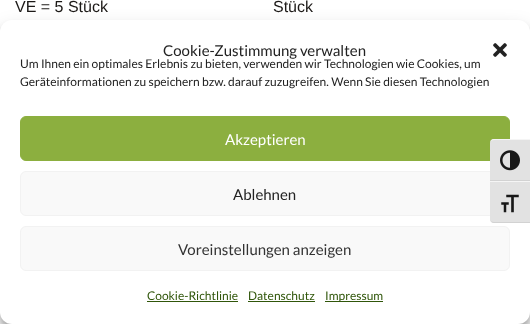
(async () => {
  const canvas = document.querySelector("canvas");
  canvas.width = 530;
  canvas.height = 324;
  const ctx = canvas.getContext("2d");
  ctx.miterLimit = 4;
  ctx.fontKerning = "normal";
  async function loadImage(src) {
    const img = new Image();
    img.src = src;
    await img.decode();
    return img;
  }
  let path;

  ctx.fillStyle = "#ffffff";
  ctx.fillRect(0, 0, 530, 324);
  ctx.fillStyle = "rgba(0, 0, 0, 0.23)";
  ctx.filter = "blur(3px)";
  ctx.beginPath();
  ctx.roundRect(0, 26, 530, 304, 12);
  ctx.fill();
  ctx.filter = "none";
  ctx.fillStyle = "rgba(0, 0, 0, 0.19)";
  ctx.filter = "blur(10px)";
  ctx.beginPath();
  ctx.roundRect(0, 30, 530, 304, 12);
  ctx.fill();
  ctx.filter = "none";
  ctx.fillStyle = "#ffffff";
  ctx.beginPath();
  ctx.roundRect(0, 20, 530, 304, 12);
  ctx.fill();
  ctx.drawImage(await loadImage("img/1.png"), 493, 43, 14, 14);
  ctx.fillStyle = "#8caf3f";
  ctx.beginPath();
  ctx.roundRect(20.5, 116.5, 489, 44, 5.5);
  ctx.fill();
  ctx.strokeStyle = "#8caf3f";
  ctx.stroke();
  ctx.fillStyle = "#f9f9f9";
  ctx.beginPath();
  ctx.roundRect(20.5, 171.5, 489, 44, 5.5);
  ctx.fill();
  ctx.strokeStyle = "#f2f2f2";
  ctx.stroke();
  ctx.beginPath();
  ctx.roundRect(20.5, 226.5, 489, 44, 5.5);
  ctx.fill();
  ctx.stroke();
  for (const [x, y, w, h, color] of [
    [147, 301, 91, 1, "#30560a"],
    [248, 301, 67, 1, "#30560a"],
    [325, 301, 58, 1, "#30560a"],
  ]) {
    ctx.fillStyle = color;
    ctx.fillRect(x, y, w, h);
  }
  ctx.fillStyle = "#e2e2e2";
  ctx.beginPath();
  ctx.roundRect(490, 139, 40, 42, [4, 0, 0, 0]);
  ctx.fill();
  ctx.fillStyle = "#f5f5f5";
  path = new Path2D("M494 140H530V139H494C492 139 490 141 490 143C490 141 492 140 494 140Z");
  ctx.fill(path);
  ctx.fillStyle = "#d2d2d2";
  ctx.fillRect(490, 180, 40, 1);
  ctx.drawImage(await loadImage("img/2.png"), 500, 150, 20, 21);
  ctx.fillStyle = "#e2e2e2";
  ctx.beginPath();
  ctx.roundRect(490, 181, 40, 42, [0, 0, 0, 4]);
  ctx.fill();
  ctx.fillStyle = "#f5f5f5";
  ctx.fillRect(490, 181, 40, 1);
  ctx.fillStyle = "#d2d2d2";
  path = new Path2D("M530 223V222H494C492 222 490 221 490 219C490 221 492 223 494 223Z");
  ctx.fill(path);
  ctx.drawImage(await loadImage("img/3.png"), 501, 194, 18, 19);
  ctx.font = "16px Liberation Sans";
  ctx.fillStyle = "#1c1917";
  ctx.fillText("VE = 5 Stück", 15, 12);
  ctx.fillText("Stück", 273, 12);
  ctx.font = "15px Lato";
  ctx.fillStyle = "#222222";
  ctx.fillText("Cookie-Zustimmung verwalten", 163, 56);
  ctx.font = "12px Lato";
  ctx.fillText("Um Ihnen ein optimales Erlebnis zu bieten, verwenden wir Technologien wie Cookies, um", 20, 68);
  ctx.fillText("Geräteinformationen zu speichern bzw. darauf zuzugreifen. Wenn Sie diesen Technologien", 20, 86);
  ctx.font = "15px Lato";
  ctx.fillStyle = "#ffffff";
  ctx.fillText("Akzeptieren", 225, 145);
  ctx.fillStyle = "#222222";
  ctx.fillText("Ablehnen", 233, 200);
  ctx.fillStyle = "#333333";
  ctx.fillText("Voreinstellungen anzeigen", 178, 255);
  ctx.font = "12px Lato";
  ctx.fillStyle = "#30560a";
  for (const [text, x, y] of [
    ["Cookie-Richtlinie", 147, 300],
    ["Datenschutz", 248, 300],
    ["Impressum", 325, 300],
  ]) {
    ctx.fillText(text, x, y);
  }
})();
